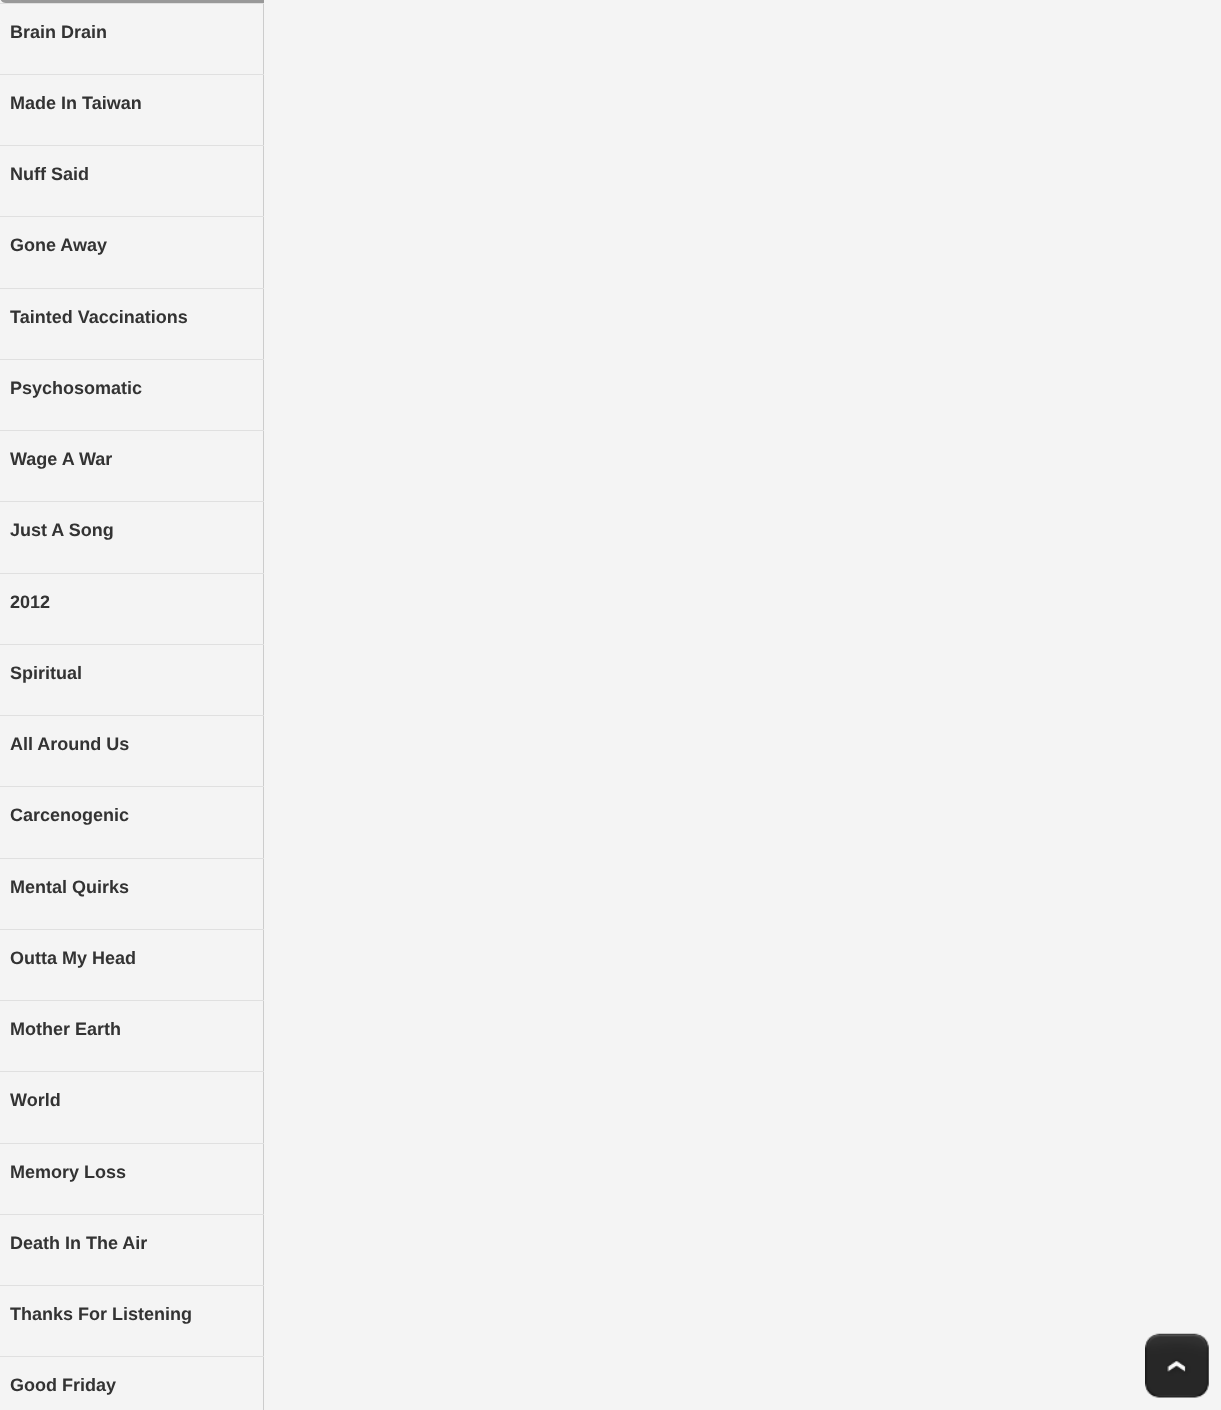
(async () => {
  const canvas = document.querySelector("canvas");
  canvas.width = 1221;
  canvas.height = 1410;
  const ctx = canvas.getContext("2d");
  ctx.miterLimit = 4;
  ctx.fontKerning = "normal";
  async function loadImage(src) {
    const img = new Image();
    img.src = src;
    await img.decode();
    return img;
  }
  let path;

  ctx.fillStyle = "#f4f4f4";
  ctx.fillRect(0, 0, 1221, 1410);
  ctx.fillStyle = "#cccccc";
  ctx.fillRect(263, 0, 1, 1410);
  ctx.fillStyle = "#e0e0e0";
  ctx.fillRect(0, 3, 264, 1);
  ctx.fillStyle = "#999999";
  path = new Path2D("M6-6H264V3H6C2.5 3 0 .5 0-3V0C0-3.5 2.5-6 6-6Z");
  ctx.fill(path);
  for (const [x, y, w, h, color] of [
    [0, 74, 264, 1, "#e0e0e0"],
    [0, 145, 264, 1, "#e0e0e0"],
    [0, 216, 264, 1, "#e0e0e0"],
    [0, 288, 264, 1, "#e0e0e0"],
    [0, 359, 264, 1, "#e0e0e0"],
    [0, 430, 264, 1, "#e0e0e0"],
    [0, 501, 264, 1, "#e0e0e0"],
    [0, 573, 264, 1, "#e0e0e0"],
    [0, 644, 264, 1, "#e0e0e0"],
    [0, 715, 264, 1, "#e0e0e0"],
    [0, 786, 264, 1, "#e0e0e0"],
    [0, 858, 264, 1, "#e0e0e0"],
    [0, 929, 264, 1, "#e0e0e0"],
    [0, 1000, 264, 1, "#e0e0e0"],
    [0, 1071, 264, 1, "#e0e0e0"],
    [0, 1143, 264, 1, "#e0e0e0"],
    [0, 1214, 264, 1, "#e0e0e0"],
    [0, 1285, 264, 1, "#e0e0e0"],
    [0, 1356, 264, 1, "#e0e0e0"],
  ]) {
    ctx.fillStyle = color;
    ctx.fillRect(x, y, w, h);
  }
  ctx.drawImage(await loadImage("img/1.png"), 1145, 1333, 64, 65);
  ctx.font = "bold 18px Liberation Sans";
  ctx.fillStyle = "#333333";
  for (const [text, x, y] of [
    ["Brain Drain", 10, 38],
    ["Made In Taiwan", 10, 109],
    ["Nuff Said", 10, 180],
    ["Gone Away", 10, 251],
    ["Tainted Vaccinations", 10, 323],
    ["Psychosomatic", 10, 394],
    ["Wage A War", 10, 465],
    ["Just A Song", 10, 536],
    ["2012", 10, 608],
    ["Spiritual", 10, 679],
    ["All Around Us", 10, 750],
    ["Carcenogenic", 10, 821],
    ["Mental Quirks", 10, 893],
    ["Outta My Head", 10, 964],
    ["Mother Earth", 10, 1035],
    ["World", 10, 1106],
    ["Memory Loss", 10, 1178],
    ["Death In The Air", 10, 1249],
    ["Thanks For Listening", 10, 1320],
    ["Good Friday", 10, 1391],
  ]) {
    ctx.fillText(text, x, y);
  }
})();
